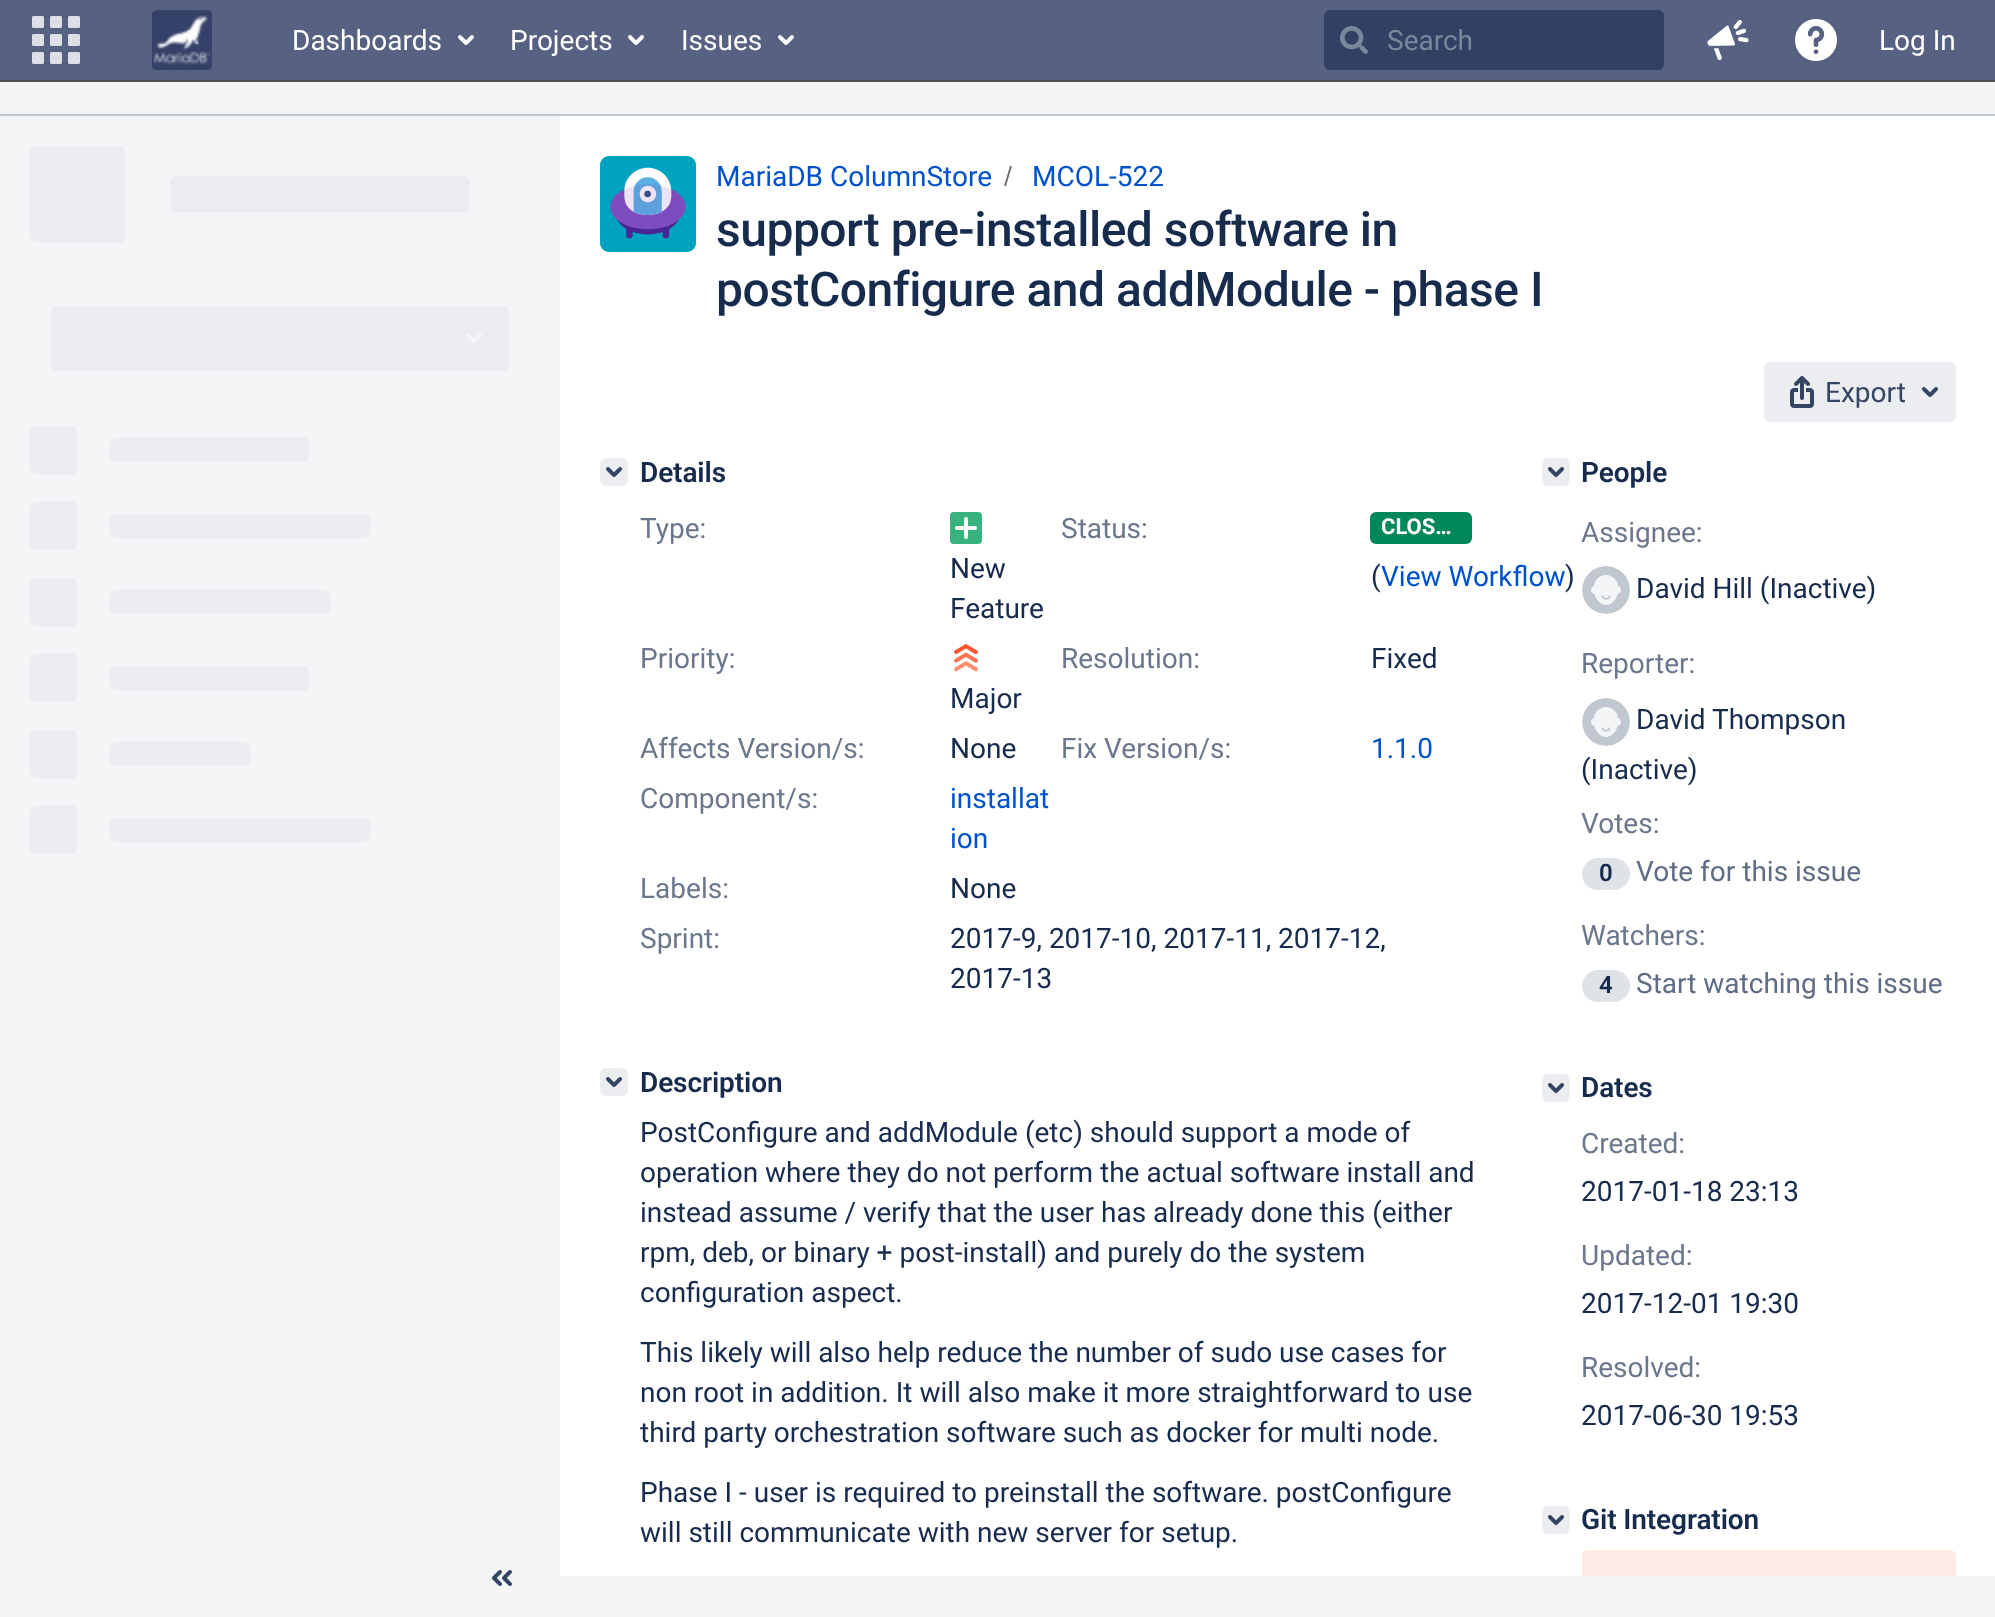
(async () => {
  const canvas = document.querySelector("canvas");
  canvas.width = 1995;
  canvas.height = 1617;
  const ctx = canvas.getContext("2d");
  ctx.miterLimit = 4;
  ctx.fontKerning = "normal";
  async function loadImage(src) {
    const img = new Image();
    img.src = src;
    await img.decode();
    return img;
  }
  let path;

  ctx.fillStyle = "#f4f5f7";
  ctx.fillRect(0, 0, 1995, 1617);
  ctx.fillStyle = "#576181";
  ctx.fillRect(0, 0, 1995, 80);
  ctx.fillStyle = "#525254";
  ctx.fillRect(0, 80, 1995, 2);
  ctx.drawImage(await loadImage("img/1.png"), 32, 16, 48, 48);
  ctx.drawImage(await loadImage("img/2.png"), 152, 10, 60, 60);
  ctx.drawImage(await loadImage("img/3.png"), 458, 35, 16, 10);
  ctx.drawImage(await loadImage("img/3.png"), 628, 35, 16, 10);
  ctx.drawImage(await loadImage("img/3.png"), 778, 35, 16, 10);
  ctx.fillStyle = "#324163";
  ctx.beginPath();
  ctx.roundRect(1324, 10, 340, 60, 6);
  ctx.fill();
  ctx.drawImage(await loadImage("img/4.png"), 1340, 26, 28, 28);
  ctx.drawImage(await loadImage("img/5.png"), 1707, 20, 42, 41);
  ctx.drawImage(await loadImage("img/6.png"), 1795, 19, 42, 42);
  ctx.fillStyle = "#c1c7d0";
  ctx.fillRect(0, 114, 1995, 2);
  ctx.drawImage(await loadImage("img/7.png"), 30, 146, 480, 708);
  ctx.drawImage(await loadImage("img/8.png"), 492, 1570, 20, 16);
  ctx.fillStyle = "#ffffff";
  ctx.fillRect(560, 116, 1435, 1460);
  ctx.drawImage(await loadImage("img/9.png"), 600, 156, 96, 96);
  ctx.fillStyle = "#707070";
  path = new Path2D("M1006 186L1012 166H1010L1004 186Z");
  ctx.fill(path);
  ctx.fillStyle = "#ebedf0";
  ctx.beginPath();
  ctx.roundRect(1764, 362, 192, 60, 6);
  ctx.fill();
  ctx.drawImage(await loadImage("img/10.png"), 1790, 376, 24, 32);
  ctx.drawImage(await loadImage("img/11.png"), 1922, 387, 16, 10);
  ctx.beginPath();
  ctx.roundRect(600, 458, 28, 28, 6);
  ctx.fill();
  ctx.drawImage(await loadImage("img/12.png"), 606, 467, 16, 10);
  ctx.drawImage(await loadImage("img/13.png"), 950, 512, 32, 32);
  ctx.fillStyle = "#00875a";
  ctx.beginPath();
  ctx.roundRect(1370, 512, 102, 32, 6);
  ctx.fill();
  ctx.drawImage(await loadImage("img/14.png"), 954, 644, 24, 28);
  ctx.fillStyle = "#ebedf0";
  ctx.beginPath();
  ctx.roundRect(600, 1068, 28, 28, 6);
  ctx.fill();
  ctx.drawImage(await loadImage("img/12.png"), 606, 1077, 16, 10);
  ctx.beginPath();
  ctx.roundRect(1542, 458, 28, 28, 6);
  ctx.fill();
  ctx.drawImage(await loadImage("img/12.png"), 1548, 467, 16, 10);
  ctx.drawImage(await loadImage("img/15.png"), 1582, 566, 48, 48);
  ctx.drawImage(await loadImage("img/15.png"), 1582, 698, 48, 48);
  ctx.fillStyle = "#dfe2e6";
  ctx.beginPath();
  ctx.roundRect(1582, 858, 48, 32, 16);
  ctx.fill();
  ctx.beginPath();
  ctx.roundRect(1582, 970, 48, 32, 16);
  ctx.fill();
  ctx.fillStyle = "#ebedf0";
  ctx.beginPath();
  ctx.roundRect(1542, 1074, 28, 28, 6);
  ctx.fill();
  ctx.drawImage(await loadImage("img/12.png"), 1548, 1083, 16, 10);
  ctx.beginPath();
  ctx.roundRect(1542, 1506, 28, 28, 6);
  ctx.fill();
  ctx.drawImage(await loadImage("img/12.png"), 1548, 1515, 16, 10);
  ctx.fillStyle = "#ffebe6";
  ctx.beginPath();
  ctx.roundRect(1582, 1550, 374, 26, [6, 6, 0, 0]);
  ctx.fill();
  ctx.font = "28px Roboto";
  ctx.fillStyle = "#ffffff";
  for (const [text, x, y] of [
    ["Dashboards", 292, 50],
    ["Projects", 510, 50],
    ["Issues", 681, 50],
  ]) {
    ctx.fillText(text, x, y);
  }
  ctx.fillStyle = "#7a869a";
  ctx.fillText("Search", 1387, 50);
  ctx.fillStyle = "#ffffff";
  ctx.fillText("Log In", 1879, 50);
  ctx.fillStyle = "#0052cc";
  ctx.fillText("MariaDB ColumnStore", 716, 186);
  ctx.fillText("MCOL-522", 1032, 186);
  ctx.letterSpacing = "-0.5px";
  ctx.font = "500 48px Roboto";
  ctx.fillStyle = "#172b4d";
  ctx.fillText("support pre-installed software in", 716, 246);
  ctx.fillText("postConfigure and addModule - phase I", 716, 306);
  ctx.letterSpacing = "0px";
  ctx.font = "28px Roboto";
  ctx.fillStyle = "#344563";
  ctx.fillText("Export", 1825, 402);
  ctx.letterSpacing = "-0.1px";
  ctx.font = "600 28px Roboto";
  ctx.fillStyle = "#172b4d";
  ctx.fillText("Details", 640, 482);
  ctx.letterSpacing = "0px";
  ctx.font = "28px Roboto";
  ctx.fillStyle = "#6b778c";
  ctx.fillText("Type:", 640, 538);
  ctx.fillStyle = "#172b4d";
  ctx.fillText("New", 950, 578);
  ctx.fillText("Feature", 950, 618);
  ctx.fillStyle = "#6b778c";
  ctx.fillText("Status:", 1061, 538);
  ctx.font = "bold 22px Roboto";
  ctx.fillStyle = "#ffffff";
  ctx.fillText("CLOS…", 1381, 534);
  ctx.font = "28px Roboto";
  ctx.fillStyle = "#172b4d";
  ctx.fillText("(", 1371, 586);
  ctx.fillStyle = "#0052cc";
  ctx.fillText("View Workflow", 1381, 586);
  ctx.fillStyle = "#172b4d";
  ctx.fillText(")", 1565, 586);
  ctx.fillStyle = "#6b778c";
  ctx.fillText("Priority:", 640, 668);
  ctx.fillStyle = "#172b4d";
  ctx.fillText("Major", 950, 708);
  ctx.fillStyle = "#6b778c";
  ctx.fillText("Resolution:", 1061, 668);
  ctx.fillStyle = "#172b4d";
  ctx.fillText("Fixed", 1371, 668);
  ctx.fillStyle = "#6b778c";
  ctx.fillText("Affects Version/s:", 640, 758);
  ctx.fillStyle = "#172b4d";
  ctx.fillText("None", 950, 758);
  ctx.fillStyle = "#6b778c";
  ctx.fillText("Fix Version/s:", 1061, 758);
  ctx.fillStyle = "#0052cc";
  ctx.fillText("1.1.0", 1371, 758);
  ctx.fillStyle = "#6b778c";
  ctx.fillText("Component/s:", 640, 808);
  ctx.fillStyle = "#0052cc";
  ctx.fillText("installat", 950, 808);
  ctx.fillText("ion", 950, 848);
  ctx.fillStyle = "#6b778c";
  ctx.fillText("Labels:", 640, 898);
  ctx.fillStyle = "#172b4d";
  ctx.fillText("None", 950, 898);
  ctx.fillStyle = "#6b778c";
  ctx.fillText("Sprint:", 640, 948);
  ctx.fillStyle = "#172b4d";
  ctx.fillText("2017-9, 2017-10, 2017-11, 2017-12,", 950, 948);
  ctx.fillText("2017-13", 950, 988);
  ctx.letterSpacing = "-0.1px";
  ctx.font = "600 28px Roboto";
  ctx.fillText("Description", 640, 1092);
  ctx.letterSpacing = "0px";
  ctx.font = "28px Roboto";
  for (const [text, x, y] of [
    ["PostConfigure and addModule (etc) should support a mode of", 640, 1142],
    ["operation where they do not perform the actual software install and", 640, 1182],
    ["instead assume / verify that the user has already done this (either", 640, 1222],
    ["rpm, deb, or binary + post-install) and purely do the system", 640, 1262],
    ["configuration aspect.", 640, 1302],
    ["This likely will also help reduce the number of sudo use cases for", 640, 1362],
    ["non root in addition. It will also make it more straightforward to use", 640, 1402],
    ["third party orchestration software such as docker for multi node.", 640, 1442],
    ["Phase I - user is required to preinstall the software. postConfigure", 640, 1502],
    ["will still communicate with new server for setup.", 640, 1542],
  ]) {
    ctx.fillText(text, x, y);
  }
  ctx.letterSpacing = "-0.1px";
  ctx.font = "600 28px Roboto";
  ctx.fillText("People", 1581, 482);
  ctx.letterSpacing = "0px";
  ctx.font = "28px Roboto";
  ctx.fillStyle = "#6b778c";
  ctx.fillText("Assignee:", 1581, 542);
  ctx.fillStyle = "#172b4d";
  ctx.fillText("David Hill (Inactive)", 1636, 598);
  ctx.fillStyle = "#6b778c";
  ctx.fillText("Reporter:", 1581, 673);
  ctx.fillStyle = "#172b4d";
  ctx.fillText("David Thompson", 1636, 729);
  ctx.fillText("(Inactive)", 1581, 779);
  ctx.fillStyle = "#6b778c";
  ctx.fillText("Votes:", 1581, 833);
  ctx.font = "600 24px Roboto";
  ctx.fillStyle = "#172b4d";
  ctx.fillText("0", 1599, 881);
  ctx.font = "28px Roboto";
  ctx.fillStyle = "#5e6c84";
  ctx.fillText("Vote for this issue", 1636, 881);
  ctx.fillStyle = "#6b778c";
  ctx.fillText("Watchers:", 1581, 945);
  ctx.font = "600 24px Roboto";
  ctx.fillStyle = "#172b4d";
  ctx.fillText("4", 1599, 993);
  ctx.font = "28px Roboto";
  ctx.fillStyle = "#5e6c84";
  ctx.fillText("Start watching this issue", 1636, 993);
  ctx.letterSpacing = "-0.1px";
  ctx.font = "600 28px Roboto";
  ctx.fillStyle = "#172b4d";
  ctx.fillText("Dates", 1581, 1097);
  ctx.letterSpacing = "0px";
  ctx.font = "28px Roboto";
  ctx.fillStyle = "#6b778c";
  ctx.fillText("Created:", 1581, 1153);
  ctx.fillStyle = "#172b4d";
  ctx.fillText("2017-01-18 23:13", 1581, 1201);
  ctx.fillStyle = "#6b778c";
  ctx.fillText("Updated:", 1581, 1265);
  ctx.fillStyle = "#172b4d";
  ctx.fillText("2017-12-01 19:30", 1581, 1313);
  ctx.fillStyle = "#6b778c";
  ctx.fillText("Resolved:", 1581, 1377);
  ctx.fillStyle = "#172b4d";
  ctx.fillText("2017-06-30 19:53", 1581, 1425);
  ctx.letterSpacing = "-0.1px";
  ctx.font = "600 28px Roboto";
  ctx.fillText("Git Integration", 1581, 1529);
})();
